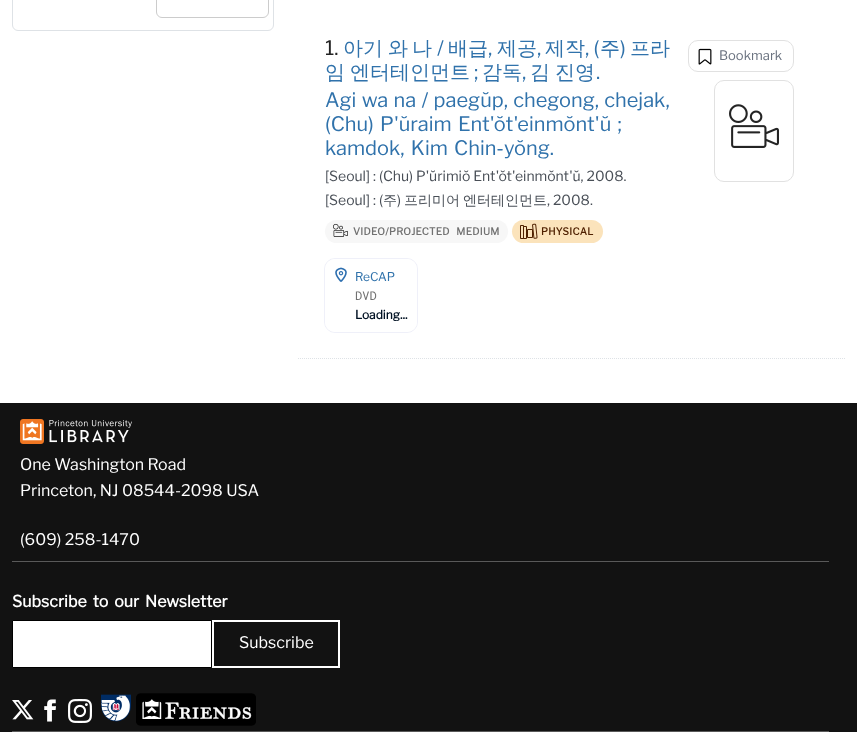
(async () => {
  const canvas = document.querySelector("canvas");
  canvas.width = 857;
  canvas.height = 732;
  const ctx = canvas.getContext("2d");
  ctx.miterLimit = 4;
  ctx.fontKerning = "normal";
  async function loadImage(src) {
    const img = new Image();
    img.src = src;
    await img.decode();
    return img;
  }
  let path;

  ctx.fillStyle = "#ffffff";
  ctx.fillRect(0, 0, 857, 732);
  ctx.beginPath();
  ctx.roundRect(12.5, -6.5, 261, 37, 5.5);
  ctx.strokeStyle = "#dee2e6";
  ctx.stroke();
  ctx.beginPath();
  ctx.roundRect(156.5, -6.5, 112, 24, 5.5);
  ctx.strokeStyle = "#cccccc";
  ctx.stroke();
  path = new Path2D("M298 358.5H845");
  ctx.strokeStyle = "#dee2e6";
  ctx.setLineDash([1, 1]);
  ctx.stroke(path);
  ctx.fillStyle = "#f7f7f7";
  ctx.beginPath();
  ctx.roundRect(325, 220, 183, 23, 11.5);
  ctx.fill();
  ctx.drawImage(await loadImage("img/1.png"), 333, 223, 15, 14);
  ctx.fillStyle = "#fbe3bb";
  ctx.beginPath();
  ctx.roundRect(512, 220, 91, 23, 11.5);
  ctx.fill();
  ctx.drawImage(await loadImage("img/2.png"), 520, 223, 18, 16);
  ctx.beginPath();
  ctx.roundRect(324.5, 258.5, 93, 74, 10.5);
  ctx.strokeStyle = "#eff0f9";
  ctx.setLineDash([]);
  ctx.stroke();
  ctx.fillStyle = "#ffffff";
  ctx.beginPath();
  ctx.roundRect(325, 259, 92, 73, 10);
  ctx.fill();
  ctx.drawImage(await loadImage("img/3.png"), 335, 267, 12, 15);
  ctx.beginPath();
  ctx.roundRect(688.5, 40.5, 105, 31, 9.5);
  ctx.strokeStyle = "#e1e1e1";
  ctx.stroke();
  ctx.drawImage(await loadImage("img/4.png"), 698, 48, 14, 17);
  ctx.beginPath();
  ctx.roundRect(714.5, 80.5, 79, 101, 9.5);
  ctx.stroke();
  ctx.drawImage(await loadImage("img/5.png"), 729, 104, 50, 44);
  ctx.fillStyle = "#121212";
  ctx.fillRect(0, 403, 857, 329);
  ctx.fillStyle = "#595959";
  ctx.fillRect(12, 561, 817, 1);
  ctx.drawImage(await loadImage("img/6.png"), 20, 419, 112, 25);
  ctx.fillRect(12, 731, 817, 1);
  ctx.fillStyle = "#ffffff";
  ctx.beginPath();
  ctx.rect(12.5, 620.5, 199, 47);
  ctx.fill();
  ctx.strokeStyle = "#000000";
  ctx.stroke();
  ctx.strokeStyle = "#ffffff";
  ctx.lineWidth = 2;
  ctx.strokeRect(213, 621, 126, 46);
  ctx.drawImage(await loadImage("img/7.png"), 12, 700, 22, 20);
  ctx.drawImage(await loadImage("img/8.png"), 44, 699, 12, 23);
  ctx.drawImage(await loadImage("img/9.png"), 68, 699, 24, 24);
  ctx.drawImage(await loadImage("img/10.png"), 101, 694, 30, 28);
  ctx.drawImage(await loadImage("img/11.png"), 136, 693, 120, 33);
  ctx.font = "20px Libre Franklin";
  ctx.fillStyle = "#242424";
  ctx.fillText("1.", 325, 55);
  ctx.font = "500 20px WenQuanYi Zen Hei";
  ctx.fillStyle = "#3072ab";
  for (const [text, x, y] of [
    ["아기", 343, 55],
    ["와", 388, 55],
    ["나", 412, 55],
  ]) {
    ctx.fillText(text, x, y);
  }
  ctx.font = "20px Libre Franklin";
  ctx.fillText("/", 437, 55);
  ctx.font = "500 20px WenQuanYi Zen Hei";
  ctx.fillText("배급", 448, 55);
  ctx.font = "20px Libre Franklin";
  ctx.fillText(",", 488, 55);
  ctx.font = "500 20px WenQuanYi Zen Hei";
  ctx.fillText("제공", 497, 55);
  ctx.font = "20px Libre Franklin";
  ctx.fillText(",", 537, 55);
  ctx.font = "500 20px WenQuanYi Zen Hei";
  ctx.fillText("제작", 545, 55);
  ctx.font = "20px Libre Franklin";
  ctx.fillText(", (", 585, 55);
  ctx.font = "500 20px WenQuanYi Zen Hei";
  ctx.fillText("주", 600, 55);
  ctx.font = "20px Libre Franklin";
  ctx.fillText(")", 620, 55);
  ctx.font = "500 20px WenQuanYi Zen Hei";
  ctx.fillText("프라", 630, 55);
  ctx.wordSpacing = "-1px";
  ctx.fillText("임 엔터테인먼트", 325, 79);
  ctx.wordSpacing = "0px";
  ctx.font = "20px Libre Franklin";
  ctx.fillText(";", 474, 79);
  ctx.font = "500 20px WenQuanYi Zen Hei";
  ctx.fillText("감독", 482, 79);
  ctx.font = "20px Libre Franklin";
  ctx.fillText(",", 522, 79);
  ctx.wordSpacing = "-1px";
  ctx.font = "500 20px WenQuanYi Zen Hei";
  ctx.fillText("김 진영", 530, 79);
  ctx.wordSpacing = "0px";
  ctx.font = "20px Libre Franklin";
  ctx.fillText(".", 596, 79);
  ctx.wordSpacing = "1px";
  ctx.fillText("Agi wa na / paegŭp, chegong, chejak,", 325, 107);
  ctx.wordSpacing = "2px";
  ctx.fillText("(Chu) P'ŭraim Ent'ŏt'einmŏnt'ŭ ;", 325, 131);
  ctx.fillText("kamdok, Kim Chin-yŏng.", 325, 155);
  ctx.wordSpacing = "0px";
  ctx.font = "14px Libre Franklin";
  ctx.fillStyle = "#494f57";
  ctx.fillText("[Seoul] : (Chu) P'ŭrimiŏ Ent'ŏt'einmŏnt'ŭ, 2008.", 325, 181);
  ctx.fillText("[Seoul] : (", 325, 205);
  ctx.font = "500 14px WenQuanYi Zen Hei";
  ctx.fillText("주", 383, 205);
  ctx.font = "14px Libre Franklin";
  ctx.fillText(")", 397, 205);
  ctx.font = "500 14px WenQuanYi Zen Hei";
  ctx.fillText("프리미어", 404, 205);
  ctx.fillText("엔터테인먼트", 463, 205);
  ctx.font = "14px Libre Franklin";
  ctx.fillText(", 2008.", 547, 205);
  ctx.letterSpacing = "0.3px";
  ctx.wordSpacing = "4px";
  ctx.font = "bold 10px Libre Franklin";
  ctx.fillStyle = "#717171";
  ctx.fillText("VIDEO/PROJECTED MEDIUM", 353, 235);
  ctx.wordSpacing = "0px";
  ctx.fillStyle = "#4f2000";
  ctx.fillText("PHYSICAL", 541, 235);
  ctx.letterSpacing = "0px";
  ctx.font = "12px Libre Franklin";
  ctx.fillStyle = "#3072ab";
  ctx.fillText("ReCAP", 355, 281);
  ctx.font = "12px Roboto Mono";
  ctx.fillStyle = "#717171";
  ctx.fillText("DVD", 355, 300);
  ctx.font = "bold 12px Libre Franklin";
  ctx.fillStyle = "#001123";
  ctx.fillText("Loading...", 355, 319);
  ctx.font = "13px Libre Franklin";
  ctx.fillStyle = "#6b7380";
  ctx.fillText("Bookmark", 719, 60);
  ctx.font = "16px Libre Franklin";
  ctx.fillStyle = "#ffffff";
  for (const [text, x, y] of [
    ["One Washington Road", 20, 470],
    ["Princeton, NJ 08544-2098 USA", 20, 496],
    ["(609) 258-1470", 20, 545],
  ]) {
    ctx.fillText(text, x, y);
  }
  ctx.wordSpacing = "2.5px";
  ctx.font = "bold 16px Libre Franklin";
  ctx.fillText("Subscribe to our Newsletter", 12, 607);
  ctx.wordSpacing = "0px";
  ctx.font = "16px Libre Franklin";
  ctx.fillText("Subscribe", 239, 648);
})();
